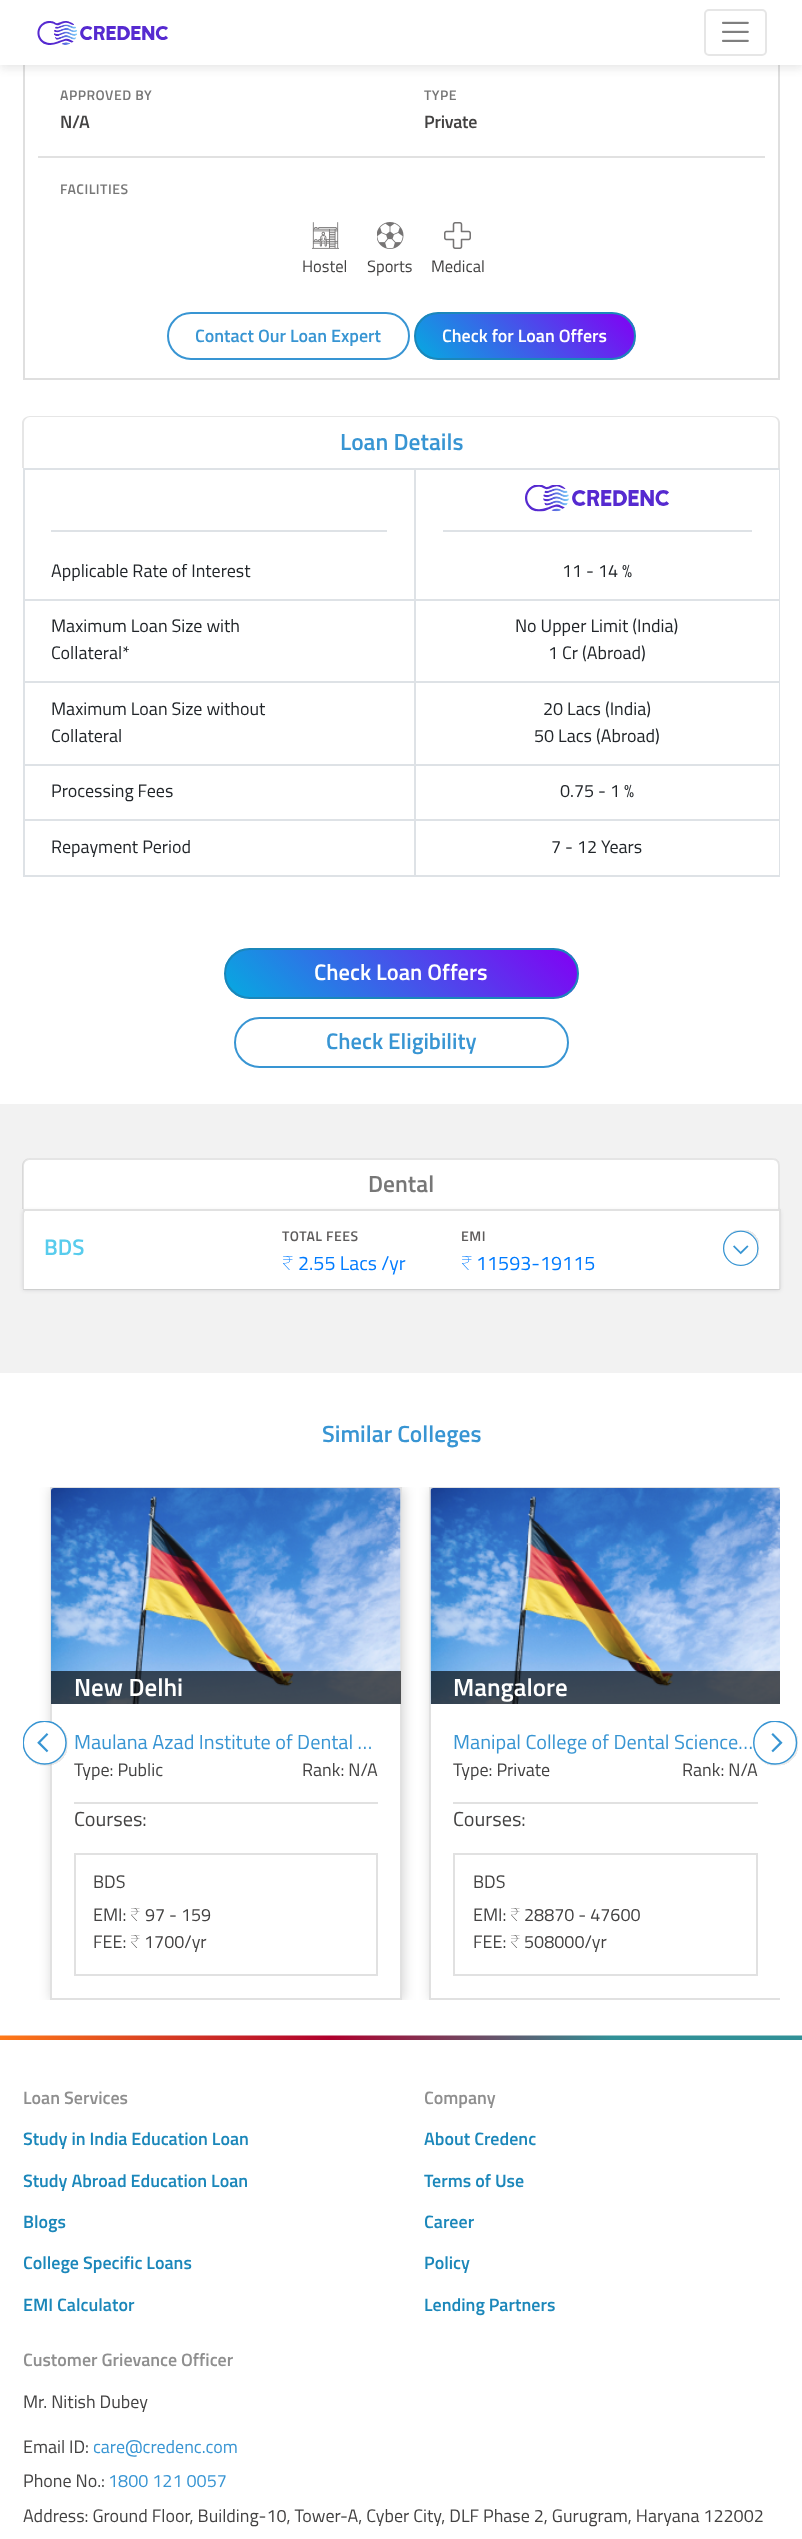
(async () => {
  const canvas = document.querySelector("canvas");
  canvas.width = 802;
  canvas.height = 2539;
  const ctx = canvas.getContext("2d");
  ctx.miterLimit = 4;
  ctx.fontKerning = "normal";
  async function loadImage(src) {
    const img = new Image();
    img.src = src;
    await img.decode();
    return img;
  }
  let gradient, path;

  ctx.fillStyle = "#ffffff";
  ctx.fillRect(0, 0, 802, 2539);
  ctx.strokeStyle = "#dfdfdf";
  ctx.lineWidth = 2;
  ctx.strokeRect(24, -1, 755, 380);
  ctx.fillStyle = "rgba(36, 39, 44, 0.1)";
  ctx.filter = "blur(4.5px)";
  ctx.beginPath();
  ctx.rect(0, 5, 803, 64);
  ctx.fill();
  ctx.filter = "none";
  ctx.fillStyle = "#ffffff";
  ctx.fillRect(0, 0, 802, 65);
  ctx.drawImage(await loadImage("img/1.png"), 37, 21, 131, 24);
  ctx.beginPath();
  ctx.roundRect(705, 10, 61, 45, 4);
  ctx.strokeStyle = "#e6e6e6";
  ctx.stroke();
  ctx.drawImage(await loadImage("img/2.png"), 722, 21, 27, 21);
  ctx.fillStyle = "#e1e1e1";
  ctx.fillRect(38, 156, 727, 2);
  ctx.drawImage(await loadImage("img/3.png"), 312, 222, 27, 27);
  ctx.drawImage(await loadImage("img/4.png"), 377, 222, 27, 27);
  ctx.drawImage(await loadImage("img/5.png"), 444, 222, 27, 27);
  ctx.beginPath();
  ctx.roundRect(168, 313, 241, 46, 23);
  ctx.strokeStyle = "#3895d3";
  ctx.stroke();
  ctx.save();
  ctx.beginPath();
  ctx.roundRect(414, 312, 222, 48, 24);
  ctx.clip();
  gradient = ctx.createLinearGradient(459, 402, 591, 270);
  gradient.addColorStop(0, "#05abe0");
  gradient.addColorStop(1, "#8200f4");
  ctx.fillStyle = gradient;
  ctx.fillRect(416, 314, 219, 45);
  ctx.restore();
  ctx.beginPath();
  ctx.roundRect(415, 313, 220, 46, 23);
  ctx.strokeStyle = "#1b87ba";
  ctx.stroke();
  ctx.fillStyle = "#e6e6e6";
  path = new Path2D("M30 416H772C777 416 780 419 780 423V468H22V423C22 419 26 416 30 416ZM30 417H772C776 417 778 420 778 423V468H24V423C24 420 27 417 30 417Z");
  ctx.fill(path, "evenodd");
  for (const [x, y, w, h, color] of [
    [23, 468, 757, 2, "#dee2e6"],
    [779, 468, 1, 408, "#dee2e6"],
    [23, 875, 757, 2, "#dee2e6"],
    [23, 468, 2, 408, "#dee2e6"],
    [51, 530, 336, 2, "#dee2e6"],
    [443, 530, 309, 2, "#dee2e6"],
  ]) {
    ctx.fillStyle = color;
    ctx.fillRect(x, y, w, h);
  }
  ctx.drawImage(await loadImage("img/6.png"), 525, 485, 144, 27);
  for (const [x, y, w, h, color] of [
    [414, 819, 2, 57, "#dee2e6"],
    [414, 819, 366, 2, "#dee2e6"],
    [414, 764, 2, 57, "#dee2e6"],
    [414, 764, 366, 2, "#dee2e6"],
    [414, 681, 2, 84, "#dee2e6"],
    [414, 681, 366, 2, "#dee2e6"],
    [414, 599, 2, 84, "#dee2e6"],
    [414, 599, 366, 2, "#dee2e6"],
    [414, 468, 2, 132, "#dee2e6"],
    [23, 599, 393, 2, "#dee2e6"],
    [23, 681, 393, 2, "#dee2e6"],
    [23, 764, 393, 2, "#dee2e6"],
    [23, 819, 393, 2, "#dee2e6"],
  ]) {
    ctx.fillStyle = color;
    ctx.fillRect(x, y, w, h);
  }
  ctx.save();
  ctx.beginPath();
  ctx.roundRect(224, 948, 355, 51, 25.5);
  ctx.clip();
  gradient = ctx.createLinearGradient(301, 1074, 501, 873);
  gradient.addColorStop(0, "#05abe0");
  gradient.addColorStop(1, "#8200f4");
  ctx.fillStyle = gradient;
  ctx.fillRect(225, 950, 353, 48);
  ctx.restore();
  ctx.beginPath();
  ctx.roundRect(225, 949, 353, 49, 24.5);
  ctx.stroke();
  ctx.beginPath();
  ctx.roundRect(235, 1018, 333, 49, 24.5);
  ctx.strokeStyle = "#3895d3";
  ctx.stroke();
  ctx.fillStyle = "#f2f2f2";
  ctx.fillRect(0, 1104, 802, 269);
  ctx.fillStyle = "#ffffff";
  ctx.beginPath();
  ctx.roundRect(23, 1158, 757, 51, [8, 8, 0, 0]);
  ctx.fill();
  ctx.fillStyle = "rgba(0, 0, 0, 0.1)";
  path = new Path2D("M30 1158H772C777 1158 780 1161 780 1166V1209H22V1166C22 1161 26 1158 30 1158ZM30 1160H772C776 1160 778 1162 778 1166V1209H24V1166C24 1162 27 1160 30 1160Z");
  ctx.fill(path, "evenodd");
  ctx.fillStyle = "rgba(36, 39, 44, 0.15)";
  ctx.filter = "blur(2px)";
  ctx.beginPath();
  ctx.rect(23, 1211, 757, 79);
  ctx.fill();
  ctx.filter = "none";
  for (const [x, y, w, h, color] of [
    [23, 1289, 757, 1, "rgba(0, 0, 0, 0.08)"],
    [25, 1211, 754, 3, "#ffffff"],
    [23, 1209, 757, 2, "#e1e1e1"],
    [779, 1209, 2, 80, "#e1e1e1"],
    [23, 1209, 2, 80, "#e1e1e1"],
  ]) {
    ctx.fillStyle = color;
    ctx.fillRect(x, y, w, h);
  }
  ctx.fillStyle = "#ffffff";
  ctx.beginPath();
  ctx.roundRect(24, 1211, 755, 78, [3, 3, 0, 0]);
  ctx.fill();
  ctx.drawImage(await loadImage("img/7.png"), 723, 1230, 36, 36);
  ctx.save();
  ctx.beginPath();
  ctx.rect(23, 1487, 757, 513);
  ctx.clip();
  ctx.fillStyle = "rgba(0, 0, 0, 0.16)";
  ctx.filter = "blur(6px)";
  ctx.beginPath();
  ctx.rect(51, 1488, 353, 513);
  ctx.fill();
  ctx.filter = "none";
  ctx.restore();
  ctx.fillRect(52, 1704, 348, 294);
  ctx.strokeStyle = "#e1e1e1";
  ctx.strokeRect(51, 1488, 350, 511);
  ctx.drawImage(await loadImage("img/8.png"), 23, 1721, 45, 45);
  ctx.drawImage(await loadImage("img/9.png"), 51, 1488, 350, 216);
  ctx.fillStyle = "rgba(0, 0, 0, 0.65)";
  ctx.fillRect(51, 1671, 350, 33);
  ctx.fillStyle = "#e1e1e1";
  ctx.fillRect(74, 1802, 304, 2);
  ctx.strokeRect(75, 1854, 302, 121);
  ctx.save();
  ctx.beginPath();
  ctx.rect(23, 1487, 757, 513);
  ctx.clip();
  ctx.fillStyle = "rgba(0, 0, 0, 0.16)";
  ctx.filter = "blur(6px)";
  ctx.beginPath();
  ctx.rect(431, 1488, 352, 513);
  ctx.fill();
  ctx.filter = "none";
  ctx.restore();
  ctx.fillStyle = "#ffffff";
  ctx.fillRect(431, 1489, 349, 509);
  ctx.save();
  ctx.beginPath();
  ctx.rect(23, 1487, 757, 513);
  ctx.clip();
  ctx.strokeRect(430, 1488, 351, 511);
  ctx.restore();
  ctx.drawImage(await loadImage("img/10.png"), 430, 1488, 350, 216);
  ctx.fillStyle = "rgba(0, 0, 0, 0.65)";
  ctx.fillRect(431, 1671, 349, 33);
  ctx.fillStyle = "#e1e1e1";
  ctx.fillRect(453, 1802, 305, 2);
  ctx.strokeRect(454, 1854, 303, 121);
  ctx.drawImage(await loadImage("img/12.png"), 0, 2035, 802, 5);
  ctx.letterSpacing = "0.5px";
  ctx.font = "600 14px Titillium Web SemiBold";
  ctx.fillStyle = "#777777";
  ctx.fillText("APPROVED BY", 60, 100);
  ctx.letterSpacing = "-0.25px";
  ctx.font = "600 18px Titillium Web SemiBold";
  ctx.fillStyle = "#434242";
  ctx.fillText("N/A", 60, 128);
  ctx.letterSpacing = "0.5px";
  ctx.font = "600 14px Titillium Web SemiBold";
  ctx.fillStyle = "#777777";
  ctx.fillText("TYPE", 424, 100);
  ctx.letterSpacing = "-0.25px";
  ctx.font = "600 18px Titillium Web SemiBold";
  ctx.fillStyle = "#434242";
  ctx.fillText("Private", 424, 128);
  ctx.letterSpacing = "0.5px";
  ctx.font = "600 14px Titillium Web SemiBold";
  ctx.fillStyle = "#777777";
  ctx.fillText("FACILITIES", 60, 194);
  ctx.letterSpacing = "0px";
  ctx.font = "16.5px Titillium Web";
  ctx.fillStyle = "#434242";
  for (const [text, x, y] of [
    ["Hostel", 302, 272],
    ["Sports", 367, 272],
    ["Medical", 431, 272],
  ]) {
    ctx.fillText(text, x, y);
  }
  ctx.font = "600 18px Titillium Web SemiBold";
  ctx.fillStyle = "#3895d3";
  ctx.fillText("Contact Our Loan Expert", 195, 342);
  ctx.fillStyle = "#ffffff";
  ctx.fillText("Check for Loan Offers", 442, 342);
  ctx.font = "600 23.5px Titillium Web SemiBold";
  ctx.fillStyle = "#3895d3";
  ctx.fillText("Loan Details", 340, 450);
  ctx.font = "18px Titillium Web";
  ctx.fillStyle = "#212529";
  for (const [text, x, y] of [
    ["Applicable Rate of Interest", 51, 577],
    ["11 - 14 %", 562, 577],
    ["Maximum Loan Size with", 51, 632],
    ["Collateral*", 51, 659],
    ["No Upper Limit (India)", 515, 632],
    ["1 Cr (Abroad)", 548, 659],
    ["Maximum Loan Size without", 51, 715],
    ["Collateral", 51, 742],
    ["20 Lacs (India)", 543, 715],
    ["50 Lacs (Abroad)", 534, 742],
    ["Processing Fees", 51, 797],
    ["0.75 - 1 %", 560, 797],
    ["Repayment Period", 51, 853],
    ["7 - 12 Years", 551, 853],
  ]) {
    ctx.fillText(text, x, y);
  }
  ctx.font = "600 22.5px Titillium Web SemiBold";
  ctx.fillStyle = "#ffffff";
  ctx.fillText("Check Loan Offers", 314, 980);
  ctx.fillStyle = "#3895d3";
  ctx.fillText("Check Eligibility", 326, 1049);
  ctx.font = "600 23.5px Titillium Web SemiBold";
  ctx.fillStyle = "#777777";
  ctx.fillText("Dental", 368, 1192);
  ctx.font = "600 22.5px Titillium Web SemiBold";
  ctx.fillStyle = "#58cced";
  ctx.fillText("BDS", 44, 1255);
  ctx.letterSpacing = "0.5px";
  ctx.font = "600 14px Titillium Web SemiBold";
  ctx.fillStyle = "#5d5b5b";
  ctx.fillText("TOTAL FEES", 282, 1241);
  ctx.letterSpacing = "0px";
  ctx.font = "100 19.75px Noto Sans";
  ctx.fillStyle = "#007bff";
  ctx.fillText("₹", 282, 1270);
  ctx.font = "19.75px Titillium Web";
  ctx.fillText("2.55 Lacs /yr", 298, 1270);
  ctx.letterSpacing = "0.5px";
  ctx.font = "600 14px Titillium Web SemiBold";
  ctx.fillStyle = "#5d5b5b";
  ctx.fillText("EMI", 461, 1241);
  ctx.letterSpacing = "0px";
  ctx.font = "100 19.75px Noto Sans";
  ctx.fillStyle = "#007bff";
  ctx.fillText("₹", 461, 1270);
  ctx.font = "19.75px Titillium Web";
  ctx.fillText("11593-19115", 476, 1270);
  ctx.font = "600 23.5px Titillium Web SemiBold";
  ctx.fillStyle = "#3895d3";
  ctx.fillText("Similar Colleges", 322, 1442);
  ctx.font = "600 25px Titillium Web SemiBold";
  ctx.fillStyle = "#ffffff";
  ctx.fillText("New Delhi", 74, 1696);
  ctx.font = "20.25px Titillium Web";
  ctx.fillStyle = "#3895d3";
  ctx.fillText("Maulana Azad Institute of Dental …", 74, 1749);
  ctx.font = "18px Titillium Web";
  ctx.fillStyle = "#434242";
  ctx.fillText("Type: Public", 74, 1776);
  ctx.fillText("Rank: N/A", 302, 1776);
  ctx.font = "20.25px Titillium Web";
  ctx.fillText("Courses:", 74, 1826);
  ctx.font = "18px Titillium Web";
  ctx.fillText("BDS", 93, 1888);
  ctx.fillText("EMI:", 93, 1921);
  ctx.font = "100 18px Noto Sans";
  ctx.fillText("₹", 130, 1921);
  ctx.font = "18px Titillium Web";
  ctx.fillText("97 - 159", 145, 1921);
  ctx.fillText("FEE:", 93, 1948);
  ctx.font = "100 18px Noto Sans";
  ctx.fillText("₹", 130, 1948);
  ctx.font = "18px Titillium Web";
  ctx.fillText("1700/yr", 144, 1948);
  ctx.font = "600 25px Titillium Web SemiBold";
  ctx.fillStyle = "#ffffff";
  ctx.fillText("Mangalore", 453, 1696);
  ctx.font = "20.25px Titillium Web";
  ctx.fillStyle = "#3895d3";
  ctx.fillText("Manipal College of Dental Science…", 453, 1749);
  ctx.font = "18px Titillium Web";
  ctx.fillStyle = "#434242";
  ctx.fillText("Type: Private", 453, 1776);
  ctx.fillText("Rank: N/A", 682, 1776);
  ctx.font = "20.25px Titillium Web";
  ctx.fillText("Courses:", 453, 1826);
  ctx.font = "18px Titillium Web";
  ctx.fillText("BDS", 473, 1888);
  ctx.fillText("EMI:", 473, 1921);
  ctx.font = "100 18px Noto Sans";
  ctx.fillText("₹", 510, 1921);
  ctx.font = "18px Titillium Web";
  ctx.fillText("28870 - 47600", 524, 1921);
  ctx.fillText("FEE:", 473, 1948);
  ctx.font = "100 18px Noto Sans";
  ctx.fillText("₹", 510, 1948);
  ctx.font = "18px Titillium Web";
  ctx.fillText("508000/yr", 524, 1948);
  ctx.drawImage(await loadImage("img/11.png"), 753, 1721, 45, 45);
  ctx.font = "600 18px Titillium Web SemiBold";
  ctx.fillStyle = "#8f8f8f";
  ctx.fillText("Loan Services", 23, 2104);
  ctx.fillStyle = "#1b87ba";
  for (const [text, x, y] of [
    ["Study in India Education Loan", 23, 2145],
    ["Study Abroad Education Loan", 23, 2187],
    ["Blogs", 23, 2228],
    ["College Specific Loans", 23, 2269],
    ["EMI Calculator", 23, 2311],
  ]) {
    ctx.fillText(text, x, y);
  }
  ctx.fillStyle = "#8f8f8f";
  ctx.fillText("Company", 424, 2104);
  ctx.fillStyle = "#1b87ba";
  for (const [text, x, y] of [
    ["About Credenc", 424, 2145],
    ["Terms of Use", 424, 2187],
    ["Career", 424, 2228],
    ["Policy", 424, 2269],
    ["Lending Partners", 424, 2311],
  ]) {
    ctx.fillText(text, x, y);
  }
  ctx.fillStyle = "#8f8f8f";
  ctx.fillText("Customer Grievance Officer", 23, 2366);
  ctx.font = "18px Titillium Web";
  ctx.fillStyle = "#434242";
  ctx.fillText("Mr. Nitish Dubey", 23, 2408);
  ctx.fillText("Email ID:", 23, 2453);
  ctx.fillStyle = "#3895d3";
  ctx.fillText("care@credenc.com", 93, 2453);
  ctx.fillStyle = "#434242";
  ctx.fillText("Phone No.:", 23, 2487);
  ctx.fillStyle = "#3895d3";
  ctx.fillText("1800 121 0057", 108, 2487);
  ctx.fillStyle = "#434242";
  ctx.fillText("Address: Ground Floor, Building-10, Tower-A, Cyber City, DLF Phase 2, Gurugram, Haryana 122002", 23, 2522);
})();
